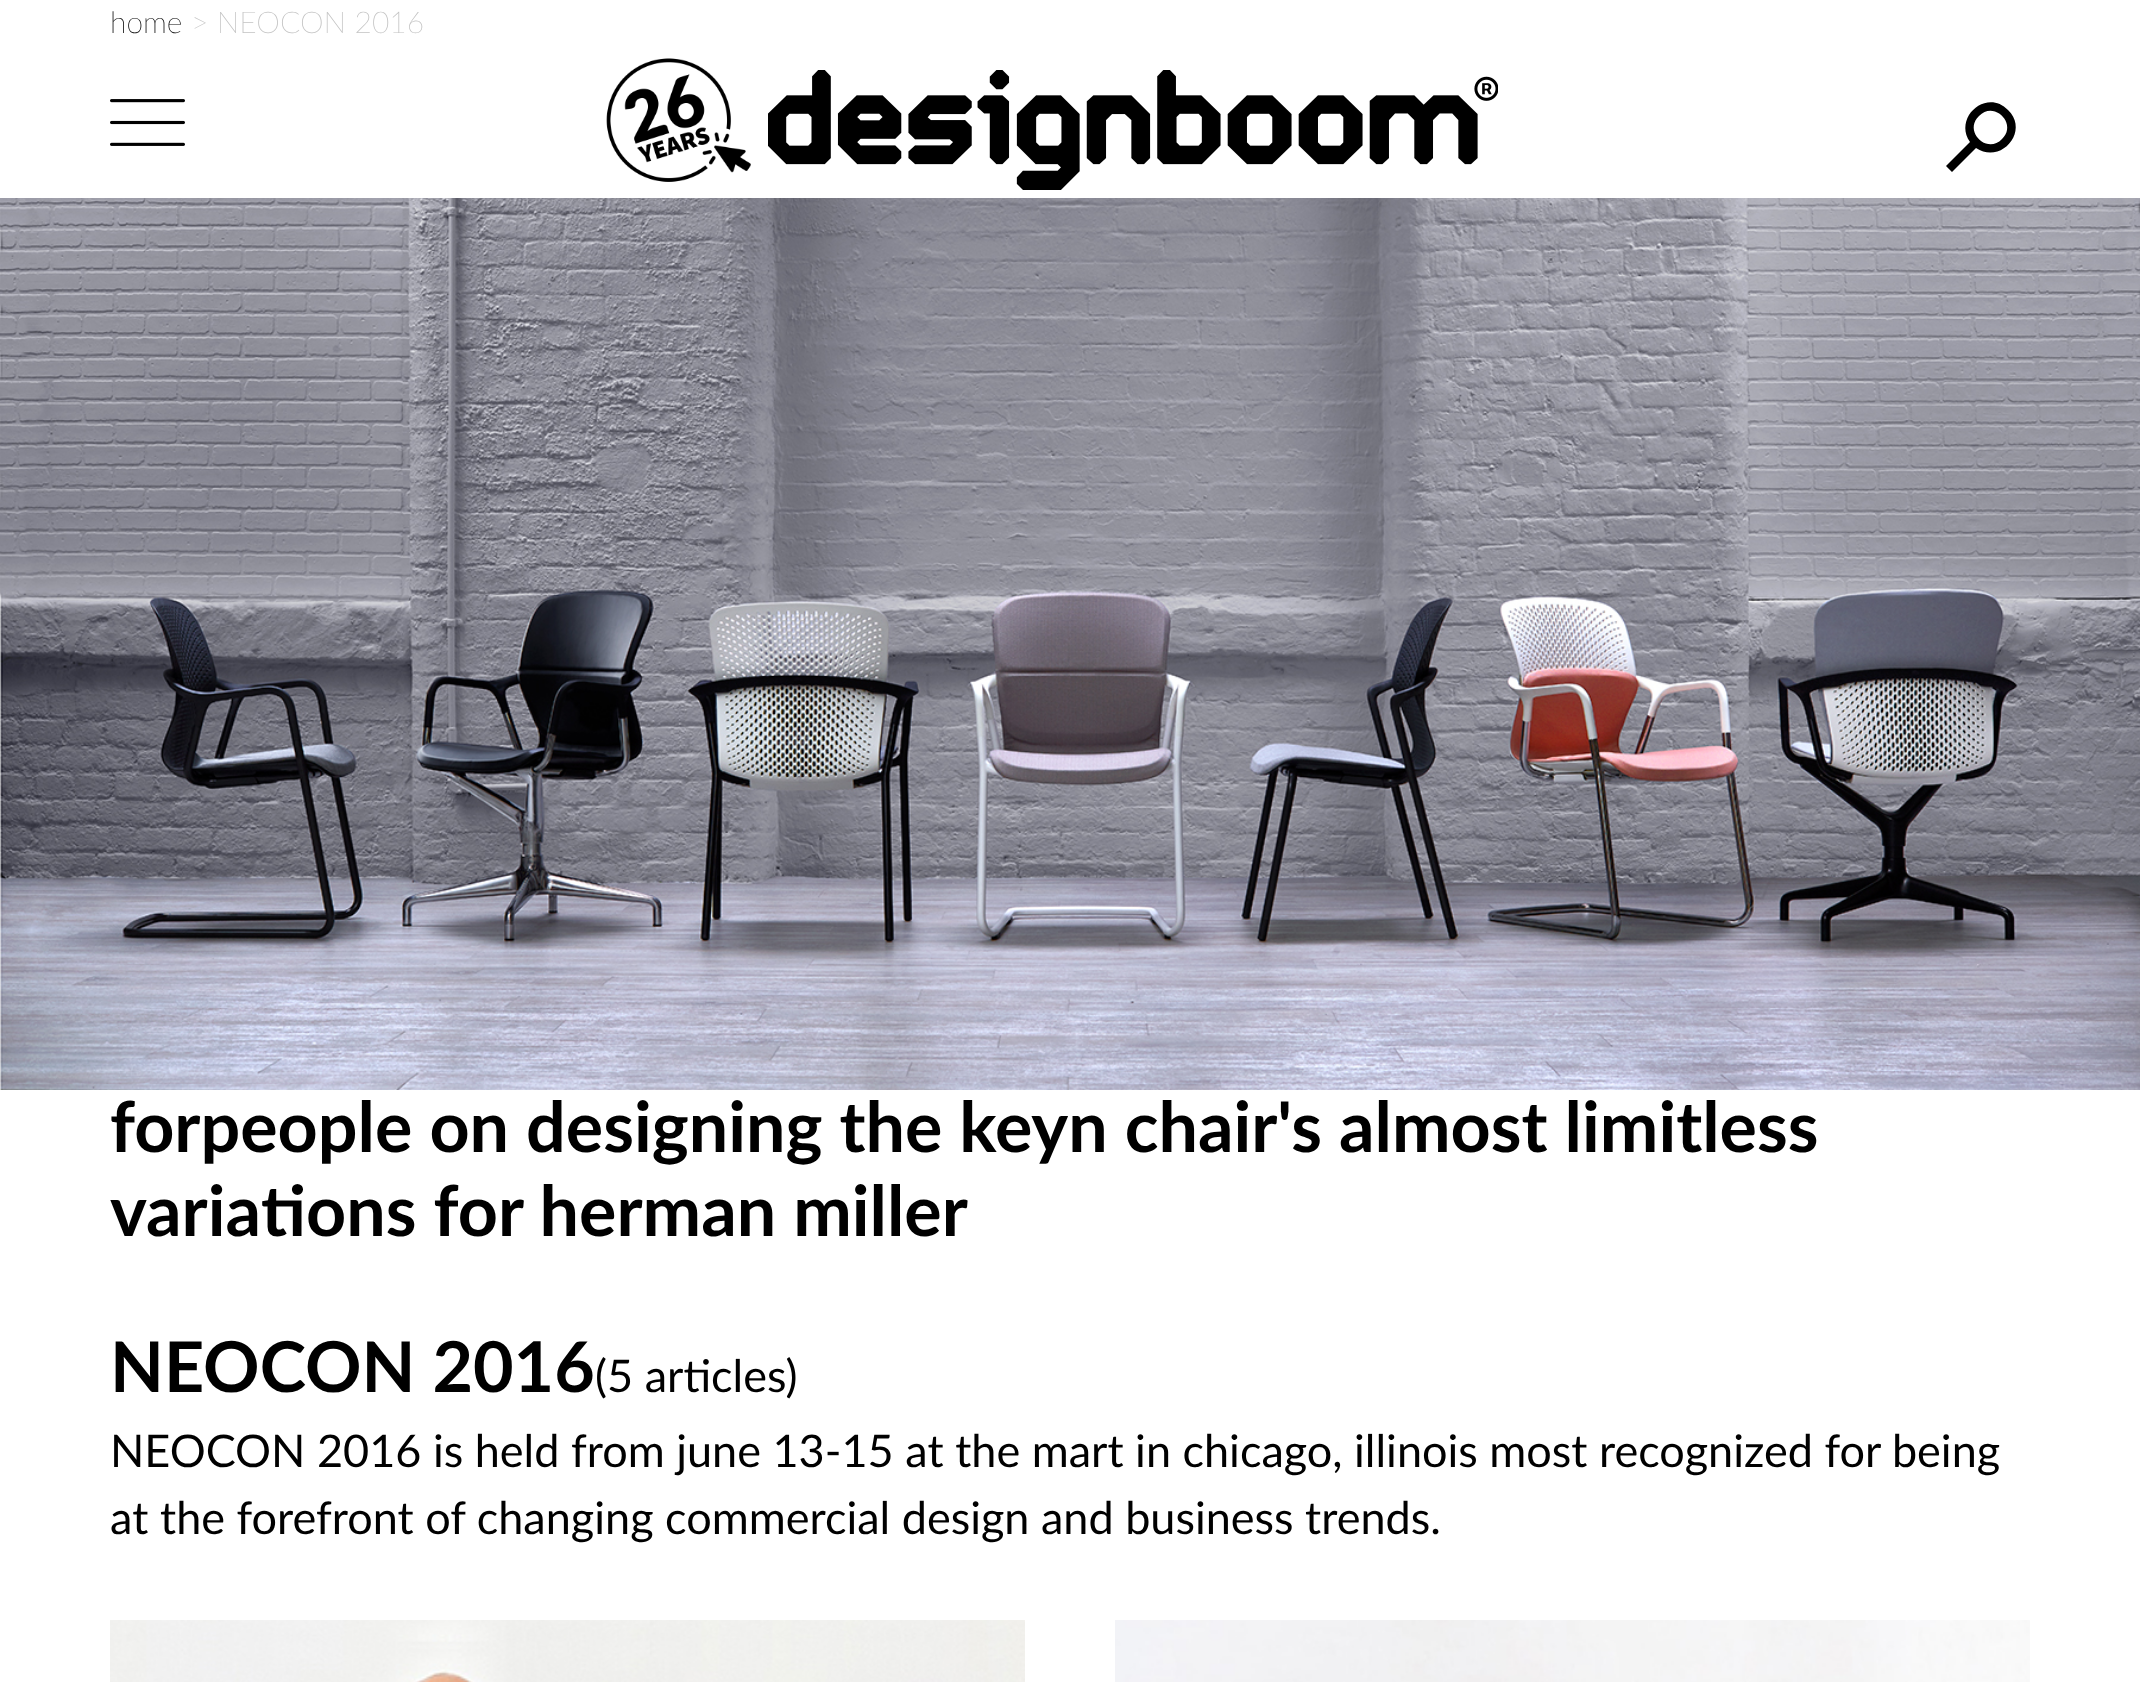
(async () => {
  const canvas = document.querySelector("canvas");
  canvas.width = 2140;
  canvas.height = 1682;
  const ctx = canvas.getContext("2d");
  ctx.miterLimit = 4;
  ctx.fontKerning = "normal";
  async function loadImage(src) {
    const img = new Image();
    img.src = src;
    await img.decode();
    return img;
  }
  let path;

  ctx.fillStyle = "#ffffff";
  ctx.fillRect(0, 0, 2140, 1682);
  ctx.drawImage(await loadImage("img/1.png"), 110, 99, 75, 47);
  ctx.drawImage(await loadImage("img/2.png"), 606, 58, 145, 124);
  ctx.drawImage(await loadImage("img/3.png"), 768, 70, 730, 120);
  ctx.fillStyle = "#000000";
  path = new Path2D("M1970 142C1953 117 1987 88 2008 110C2030 131 2001 165 1976 148L1952 172L1946 166ZM1979 116C1963 131 1987 155 2002 139C2018 124 1994 100 1979 116Z");
  ctx.fill(path, "evenodd");
  ctx.drawImage(await loadImage("img/4.png"), 0, 198, 2140, 892);
  ctx.drawImage(await loadImage("img/5.png"), 110, 1620, 915, 62);
  ctx.drawImage(await loadImage("img/6.png"), 1115, 1620, 915, 62);
  ctx.font = "100 30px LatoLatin";
  ctx.fillText("home", 110, 33);
  ctx.fillStyle = "#c3c3c3";
  ctx.fillText("> NEOCON 2016", 191, 33);
  ctx.font = "bold 70px LatoLatin";
  ctx.fillStyle = "#000000";
  for (const [text, x, y] of [
    ["forpeople on designing the keyn chair's almost limitless", 110, 1152],
    ["variations for herman miller", 110, 1236],
    ["NEOCON 2016", 110, 1392],
  ]) {
    ctx.fillText(text, x, y);
  }
  ctx.font = "45px LatoLatin";
  for (const [text, x, y] of [
    ["(5 articles)", 595, 1392],
    ["NEOCON 2016 is held from june 13-15 at the mart in chicago, illinois most recognized for being", 110, 1467],
    ["at the forefront of changing commercial design and business trends.", 110, 1534],
  ]) {
    ctx.fillText(text, x, y);
  }
})();
